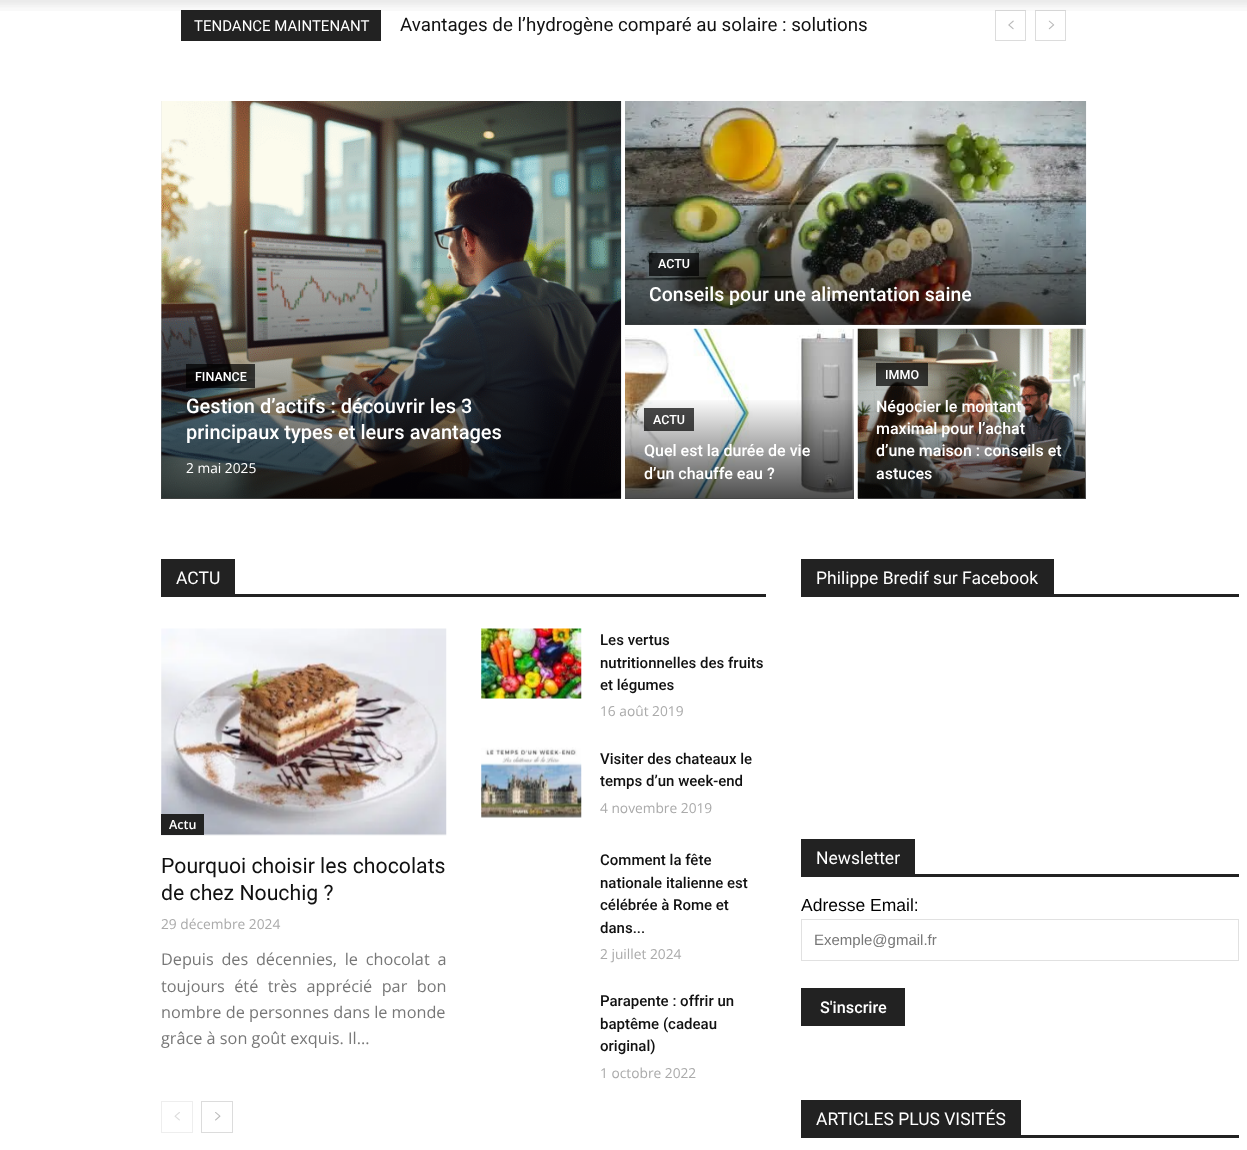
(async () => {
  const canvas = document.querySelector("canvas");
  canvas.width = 1247;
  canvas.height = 1150;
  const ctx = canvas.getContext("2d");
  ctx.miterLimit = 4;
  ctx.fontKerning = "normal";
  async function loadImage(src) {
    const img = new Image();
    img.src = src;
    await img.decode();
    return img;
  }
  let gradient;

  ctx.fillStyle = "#ffffff";
  ctx.fillRect(0, 0, 1247, 1150);
  ctx.fillStyle = "#222222";
  ctx.fillRect(181, 10, 200, 31);
  ctx.strokeStyle = "#dcdcdc";
  ctx.strokeRect(995.5, 10.5, 30, 30);
  ctx.strokeRect(1035.5, 10.5, 30, 30);
  ctx.drawImage(await loadImage("img/1.png"), 0, 0, 1247, 11);
  ctx.drawImage(await loadImage("img/2.png"), 1008, 20, 6, 10);
  ctx.drawImage(await loadImage("img/3.png"), 1048, 20, 7, 10);
  ctx.fillStyle = "#e5e5e5";
  ctx.fillRect(161, 101, 460, 398);
  ctx.drawImage(await loadImage("img/4.png"), 161, 101, 461, 398);
  gradient = ctx.createLinearGradient(391, 101, 391, 499);
  gradient.addColorStop(0.4, "rgba(0, 0, 0, 0)");
  gradient.addColorStop(1, "rgba(0, 0, 0, 0.7)");
  ctx.fillStyle = gradient;
  ctx.fillRect(161, 268, 460, 231);
  ctx.fillStyle = "rgba(0, 0, 0, 0.7)";
  ctx.fillRect(186, 364, 69, 24);
  ctx.drawImage(await loadImage("img/5.png"), 625, 101, 462, 224);
  gradient = ctx.createLinearGradient(856, 101, 856, 325);
  gradient.addColorStop(0.4, "rgba(0, 0, 0, 0)");
  gradient.addColorStop(1, "rgba(0, 0, 0, 0.7)");
  ctx.fillStyle = gradient;
  ctx.fillRect(625, 195, 461, 130);
  ctx.fillStyle = "rgba(0, 0, 0, 0.7)";
  ctx.fillRect(649, 253, 50, 23);
  ctx.fillStyle = "#e5e5e5";
  ctx.fillRect(625, 329, 229, 170);
  ctx.drawImage(await loadImage("img/6.png"), 625, 328, 228, 171);
  gradient = ctx.createLinearGradient(739, 329, 739, 499);
  gradient.addColorStop(0.4, "rgba(0, 0, 0, 0)");
  gradient.addColorStop(1, "rgba(0, 0, 0, 0.7)");
  ctx.fillStyle = gradient;
  ctx.fillRect(625, 400, 229, 99);
  ctx.fillStyle = "rgba(0, 0, 0, 0.7)";
  ctx.fillRect(644, 408, 50, 23);
  ctx.fillStyle = "#e5e5e5";
  ctx.fillRect(858, 329, 228, 170);
  ctx.drawImage(await loadImage("img/7.png"), 857, 328, 228, 171);
  gradient = ctx.createLinearGradient(972, 329, 972, 499);
  gradient.addColorStop(0.4, "rgba(0, 0, 0, 0)");
  gradient.addColorStop(1, "rgba(0, 0, 0, 0.7)");
  ctx.fillStyle = gradient;
  ctx.fillRect(858, 400, 228, 99);
  for (const [x, y, w, h, color] of [
    [876, 363, 52, 23, "rgba(0, 0, 0, 0.7)"],
    [161, 594, 605, 3, "#222222"],
    [161, 559, 74, 35, "#222222"],
  ]) {
    ctx.fillStyle = color;
    ctx.fillRect(x, y, w, h);
  }
  ctx.drawImage(await loadImage("img/8.png"), 161, 628, 286, 208);
  ctx.fillRect(161, 814, 43, 21);
  ctx.drawImage(await loadImage("img/9.png"), 481, 628, 101, 71);
  ctx.drawImage(await loadImage("img/10.png"), 481, 747, 101, 71);
  ctx.strokeStyle = "#eeeeee";
  ctx.strokeRect(161.5, 1101.5, 31, 31);
  ctx.drawImage(await loadImage("img/11.png"), 174, 1112, 6, 9);
  ctx.strokeStyle = "#dcdcdc";
  ctx.strokeRect(201.5, 1101.5, 31, 31);
  ctx.drawImage(await loadImage("img/12.png"), 215, 1112, 6, 9);
  for (const [x, y, w, h, color] of [
    [801, 594, 438, 3, "#222222"],
    [801, 559, 253, 35, "#222222"],
    [801, 874, 438, 3, "#222222"],
    [801, 839, 114, 35, "#222222"],
  ]) {
    ctx.fillStyle = color;
    ctx.fillRect(x, y, w, h);
  }
  ctx.strokeStyle = "#e1e1e1";
  ctx.strokeRect(801.5, 919.5, 437, 41);
  for (const [x, y, w, h, color] of [
    [801, 988, 104, 38, "#222222"],
    [801, 1135, 438, 3, "#222222"],
    [801, 1100, 220, 35, "#222222"],
  ]) {
    ctx.fillStyle = color;
    ctx.fillRect(x, y, w, h);
  }
  ctx.font = "15px Roboto";
  ctx.fillStyle = "#ffffff";
  ctx.fillText("TENDANCE MAINTENANT", 194, 31);
  ctx.font = "18.75px Roboto";
  ctx.fillStyle = "#111111";
  ctx.fillText("Avantages de l’hydrogène comparé au solaire : solutions", 400, 31);
  ctx.font = "500 12.5px Roboto";
  ctx.fillStyle = "#ffffff";
  ctx.fillText("FINANCE", 195, 381);
  ctx.font = "500 20px Roboto";
  ctx.fillText("Gestion d’actifs : découvrir les 3", 186, 413);
  ctx.fillText("principaux types et leurs avantages", 186, 439);
  ctx.font = "13.75px Open Sans";
  ctx.fillText("2 mai 2025", 186, 473);
  ctx.font = "500 12.5px Roboto";
  ctx.fillText("ACTU", 658, 268);
  ctx.font = "500 19.5px Roboto";
  ctx.fillText("Conseils pour une alimentation saine", 649, 301);
  ctx.font = "500 12.5px Roboto";
  ctx.fillText("ACTU", 653, 424);
  ctx.font = "500 16px Roboto";
  ctx.fillText("Quel est la durée de vie", 644, 456);
  ctx.fillText("d’un chauffe eau ?", 644, 479);
  ctx.font = "500 12.5px Roboto";
  ctx.fillText("IMMO", 885, 379);
  ctx.font = "500 16px Roboto";
  for (const [text, x, y] of [
    ["Négocier le montant", 876, 412],
    ["maximal pour l’achat", 876, 434],
    ["d’une maison : conseils et", 876, 456],
    ["astuces", 876, 479],
  ]) {
    ctx.fillText(text, x, y);
  }
  ctx.font = "17.5px Roboto";
  ctx.fillText("ACTU", 176, 584);
  ctx.font = "600 12.5px Open Sans";
  ctx.fillText("Actu", 169, 829);
  ctx.font = "21.25px Roboto";
  ctx.fillStyle = "#111111";
  ctx.fillText("Pourquoi choisir les chocolats", 161, 873);
  ctx.fillText("de chez Nouchig ?", 161, 900);
  ctx.font = "13.75px Open Sans";
  ctx.fillStyle = "#aaaaaa";
  ctx.fillText("29 décembre 2024", 161, 929);
  ctx.wordSpacing = "3.5px";
  ctx.font = "16.25px Open Sans";
  ctx.fillStyle = "#777777";
  ctx.fillText("Depuis des décennies, le chocolat a", 161, 965);
  ctx.wordSpacing = "5.25px";
  ctx.fillText("toujours été très apprécié par bon", 161, 992);
  ctx.wordSpacing = "0px";
  ctx.fillText("nombre de personnes dans le monde", 161, 1018);
  ctx.fillText("grâce à son goût exquis. Il...", 161, 1044);
  ctx.font = "500 15px Roboto";
  ctx.fillStyle = "#111111";
  for (const [text, x, y] of [
    ["Les vertus", 600, 645],
    ["nutritionnelles des fruits", 600, 668],
    ["et légumes", 600, 690],
  ]) {
    ctx.fillText(text, x, y);
  }
  ctx.font = "13.75px Open Sans";
  ctx.fillStyle = "#aaaaaa";
  ctx.fillText("16 août 2019", 600, 716);
  ctx.font = "500 15px Roboto";
  ctx.fillStyle = "#111111";
  ctx.fillText("Visiter des chateaux le", 600, 764);
  ctx.fillText("temps d’un week-end", 600, 786);
  ctx.font = "13.75px Open Sans";
  ctx.fillStyle = "#aaaaaa";
  ctx.fillText("4 novembre 2019", 600, 813);
  ctx.font = "500 15px Roboto";
  ctx.fillStyle = "#111111";
  for (const [text, x, y] of [
    ["Comment la fête", 600, 865],
    ["nationale italienne est", 600, 888],
    ["célébrée à Rome et", 600, 910],
    ["dans...", 600, 933],
  ]) {
    ctx.fillText(text, x, y);
  }
  ctx.font = "13.75px Open Sans";
  ctx.fillStyle = "#aaaaaa";
  ctx.fillText("2 juillet 2024", 600, 959);
  ctx.font = "500 15px Roboto";
  ctx.fillStyle = "#111111";
  for (const [text, x, y] of [
    ["Parapente : offrir un", 600, 1006],
    ["baptême (cadeau", 600, 1029],
    ["original)", 600, 1051],
  ]) {
    ctx.fillText(text, x, y);
  }
  ctx.font = "13.75px Open Sans";
  ctx.fillStyle = "#aaaaaa";
  ctx.fillText("1 octobre 2022", 600, 1078);
  ctx.font = "17.5px Roboto";
  ctx.fillStyle = "#ffffff";
  ctx.fillText("Philippe Bredif sur Facebook", 816, 584);
  ctx.fillText("Newsletter", 816, 864);
  ctx.font = "17.5px Liberation Sans";
  ctx.fillStyle = "#000000";
  ctx.fillText("Adresse Email:", 801, 911);
  ctx.font = "15px Liberation Sans";
  ctx.fillStyle = "#777777";
  ctx.fillText("Exemple@gmail.fr", 814, 945);
  ctx.font = "500 16.25px Roboto";
  ctx.fillStyle = "#ffffff";
  ctx.fillText("S'inscrire", 820, 1013);
  ctx.font = "17.5px Roboto";
  ctx.fillText("ARTICLES PLUS VISITÉS", 816, 1125);
})();
